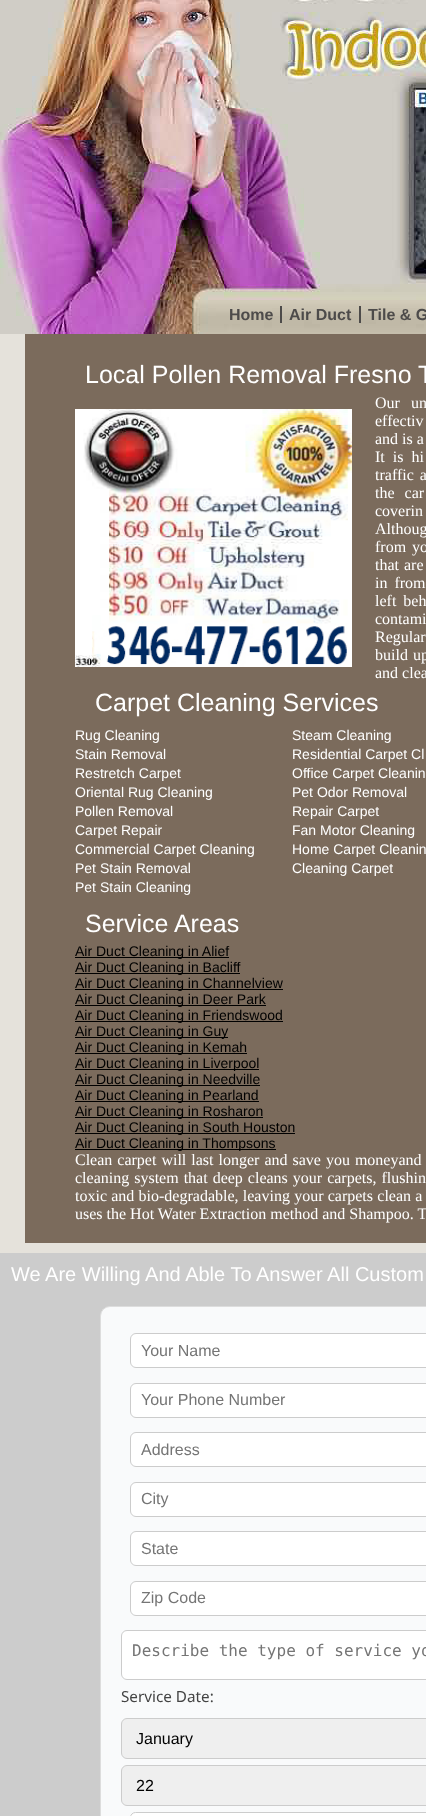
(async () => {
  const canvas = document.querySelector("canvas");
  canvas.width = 426;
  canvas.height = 1816;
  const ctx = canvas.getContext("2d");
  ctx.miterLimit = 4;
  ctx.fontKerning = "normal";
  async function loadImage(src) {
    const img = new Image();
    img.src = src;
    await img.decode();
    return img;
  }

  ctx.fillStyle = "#e5e2db";
  ctx.fillRect(0, 0, 426, 1816);
  ctx.drawImage(await loadImage("img/1.png"), 0, 0, 426, 334);
  for (const [x, y, w, h, color] of [
    [280, 306, 2, 17, "#4d4b4a"],
    [359, 306, 2, 17, "#4d4b4a"],
    [25, 334, 401, 909, "#7b6b5c"],
  ]) {
    ctx.fillStyle = color;
    ctx.fillRect(x, y, w, h);
  }
  ctx.drawImage(await loadImage("img/2.png"), 75, 409, 277, 258);
  for (const [x, y, w, h, color] of [
    [75, 957, 154, 1, "#000000"],
    [75, 973, 165, 1, "#000000"],
    [75, 989, 208, 1, "#000000"],
    [75, 1005, 191, 1, "#000000"],
    [75, 1021, 208, 1, "#000000"],
    [75, 1037, 153, 1, "#000000"],
    [75, 1053, 172, 1, "#000000"],
    [75, 1069, 184, 1, "#000000"],
    [75, 1085, 185, 1, "#000000"],
    [75, 1101, 184, 1, "#000000"],
    [75, 1117, 188, 1, "#000000"],
    [75, 1133, 220, 1, "#000000"],
    [75, 1149, 201, 1, "#000000"],
    [0, 1253, 426, 563, "#cccccc"],
  ]) {
    ctx.fillStyle = color;
    ctx.fillRect(x, y, w, h);
  }
  ctx.fillStyle = "#f9fafb";
  ctx.beginPath();
  ctx.roundRect(100.5, 1306.5, 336, 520, 9.5);
  ctx.fill();
  ctx.strokeStyle = "#dddddd";
  ctx.stroke();
  ctx.fillStyle = "#ffffff";
  ctx.beginPath();
  ctx.roundRect(130.5, 1333.5, 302, 34, 5.5);
  ctx.fill();
  ctx.strokeStyle = "#cccccc";
  ctx.stroke();
  ctx.beginPath();
  ctx.roundRect(130.5, 1383.5, 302, 34, 5.5);
  ctx.fill();
  ctx.stroke();
  ctx.beginPath();
  ctx.roundRect(130.5, 1432.5, 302, 34, 5.5);
  ctx.fill();
  ctx.stroke();
  ctx.beginPath();
  ctx.roundRect(130.5, 1482.5, 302, 34, 5.5);
  ctx.fill();
  ctx.stroke();
  ctx.beginPath();
  ctx.roundRect(130.5, 1531.5, 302, 34, 5.5);
  ctx.fill();
  ctx.stroke();
  ctx.beginPath();
  ctx.roundRect(130.5, 1581.5, 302, 34, 5.5);
  ctx.fill();
  ctx.stroke();
  ctx.beginPath();
  ctx.roundRect(121.5, 1630.5, 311, 49, 5.5);
  ctx.fill();
  ctx.stroke();
  ctx.fillStyle = "#efefef";
  ctx.beginPath();
  ctx.roundRect(121.5, 1718.5, 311, 40, 5.5);
  ctx.fill();
  ctx.stroke();
  ctx.beginPath();
  ctx.roundRect(121.5, 1765.5, 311, 40, 5.5);
  ctx.fill();
  ctx.stroke();
  ctx.fillStyle = "#ffffff";
  ctx.beginPath();
  ctx.roundRect(130.5, 1812.5, 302, 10, 5.5);
  ctx.fill();
  ctx.stroke();
  ctx.font = "bold 16px Liberation Sans";
  ctx.fillStyle = "#4d4b4a";
  for (const [text, x, y] of [
    ["Home", 229, 320],
    ["Air Duct", 289, 320],
    ["Tile & G", 368, 320],
  ]) {
    ctx.fillText(text, x, y);
  }
  ctx.font = "25px Liberation Sans";
  ctx.fillStyle = "#ffffff";
  ctx.fillText("Local Pollen Removal Fresno T", 85, 383);
  ctx.wordSpacing = "7px";
  ctx.font = "16px Liberation Serif";
  ctx.fillText("Our un", 375, 408);
  ctx.wordSpacing = "4px";
  ctx.fillText("effectiv", 375, 426);
  ctx.wordSpacing = "0px";
  ctx.fillText("and is a", 375, 444);
  ctx.wordSpacing = "4px";
  ctx.fillText("It is hi", 375, 462);
  ctx.wordSpacing = "2px";
  ctx.fillText("traffic a", 375, 480);
  ctx.wordSpacing = "6px";
  ctx.fillText("the car", 375, 498);
  ctx.fillText("coverin", 375, 516);
  ctx.wordSpacing = "2px";
  ctx.fillText("Althoug", 375, 534);
  ctx.fillText("from yo", 375, 552);
  ctx.wordSpacing = "1px";
  ctx.fillText("that are", 375, 570);
  ctx.wordSpacing = "3px";
  ctx.fillText("in from", 375, 588);
  ctx.fillText("left beh", 375, 606);
  ctx.wordSpacing = "1px";
  for (const [text, x, y] of [
    ["contami", 375, 624],
    ["Regular", 375, 642],
    ["build up", 375, 660],
  ]) {
    ctx.fillText(text, x, y);
  }
  ctx.wordSpacing = "0px";
  ctx.fillText("and clea", 375, 678);
  ctx.font = "25px Liberation Sans";
  ctx.fillText("Carpet Cleaning Services", 95, 711);
  ctx.font = "14px Liberation Sans";
  for (const [text, x, y] of [
    ["Rug Cleaning", 75, 740],
    ["Steam Cleaning", 292, 740],
    ["Stain Removal", 75, 759],
    ["Residential Carpet Cl", 292, 759],
    ["Restretch Carpet", 75, 778],
    ["Office Carpet Cleanin", 292, 778],
    ["Oriental Rug Cleaning", 75, 797],
    ["Pet Odor Removal", 292, 797],
    ["Pollen Removal", 75, 816],
    ["Repair Carpet", 292, 816],
    ["Carpet Repair", 75, 835],
    ["Fan Motor Cleaning", 292, 835],
    ["Commercial Carpet Cleaning", 75, 854],
    ["Home Carpet Cleanin", 292, 854],
    ["Pet Stain Removal", 75, 873],
    ["Cleaning Carpet", 292, 873],
    ["Pet Stain Cleaning", 75, 892],
  ]) {
    ctx.fillText(text, x, y);
  }
  ctx.font = "25px Liberation Sans";
  ctx.fillText("Service Areas", 85, 932);
  ctx.font = "14px Liberation Sans";
  ctx.fillStyle = "#000000";
  for (const [text, x, y] of [
    ["Air Duct Cleaning in Alief", 75, 956],
    ["Air Duct Cleaning in Bacliff", 75, 972],
    ["Air Duct Cleaning in Channelview", 75, 988],
    ["Air Duct Cleaning in Deer Park", 75, 1004],
    ["Air Duct Cleaning in Friendswood", 75, 1020],
    ["Air Duct Cleaning in Guy", 75, 1036],
    ["Air Duct Cleaning in Kemah", 75, 1052],
    ["Air Duct Cleaning in Liverpool", 75, 1068],
    ["Air Duct Cleaning in Needville", 75, 1084],
    ["Air Duct Cleaning in Pearland", 75, 1100],
    ["Air Duct Cleaning in Rosharon", 75, 1116],
    ["Air Duct Cleaning in South Houston", 75, 1132],
    ["Air Duct Cleaning in Thompsons", 75, 1148],
  ]) {
    ctx.fillText(text, x, y);
  }
  ctx.wordSpacing = "1px";
  ctx.font = "16px Liberation Serif";
  ctx.fillStyle = "#ffffff";
  ctx.fillText("Clean carpet will last longer and save you moneyand", 75, 1165);
  ctx.fillText("cleaning system that deep cleans your carpets, flushin", 75, 1183);
  ctx.wordSpacing = "0.25px";
  ctx.fillText("toxic and bio-degradable, leaving your carpets clean a", 75, 1201);
  ctx.wordSpacing = "0px";
  ctx.fillText("uses the Hot Water Extraction method and Shampoo. T", 75, 1219);
  ctx.font = "20px Liberation Sans";
  ctx.fillText("We Are Willing And Able To Answer All Custom", 11, 1281);
  ctx.font = "16px Liberation Sans";
  ctx.fillStyle = "#757575";
  for (const [text, x, y] of [
    ["Your Name", 141, 1356],
    ["Your Phone Number", 141, 1405],
    ["Address", 141, 1455],
    ["City", 141, 1504],
    ["State", 141, 1554],
    ["Zip Code", 141, 1603],
  ]) {
    ctx.fillText(text, x, y);
  }
  ctx.font = "16px DejaVu Sans Mono";
  ctx.fillText("Describe the type of service yo", 132, 1656);
  ctx.font = "15.25px Noto Sans";
  ctx.fillStyle = "#444444";
  ctx.fillText("Service Date:", 121, 1702);
  ctx.font = "16px Liberation Sans";
  ctx.fillStyle = "#000000";
  ctx.fillText("January", 136, 1744);
  ctx.fillText("22", 136, 1791);
})();
